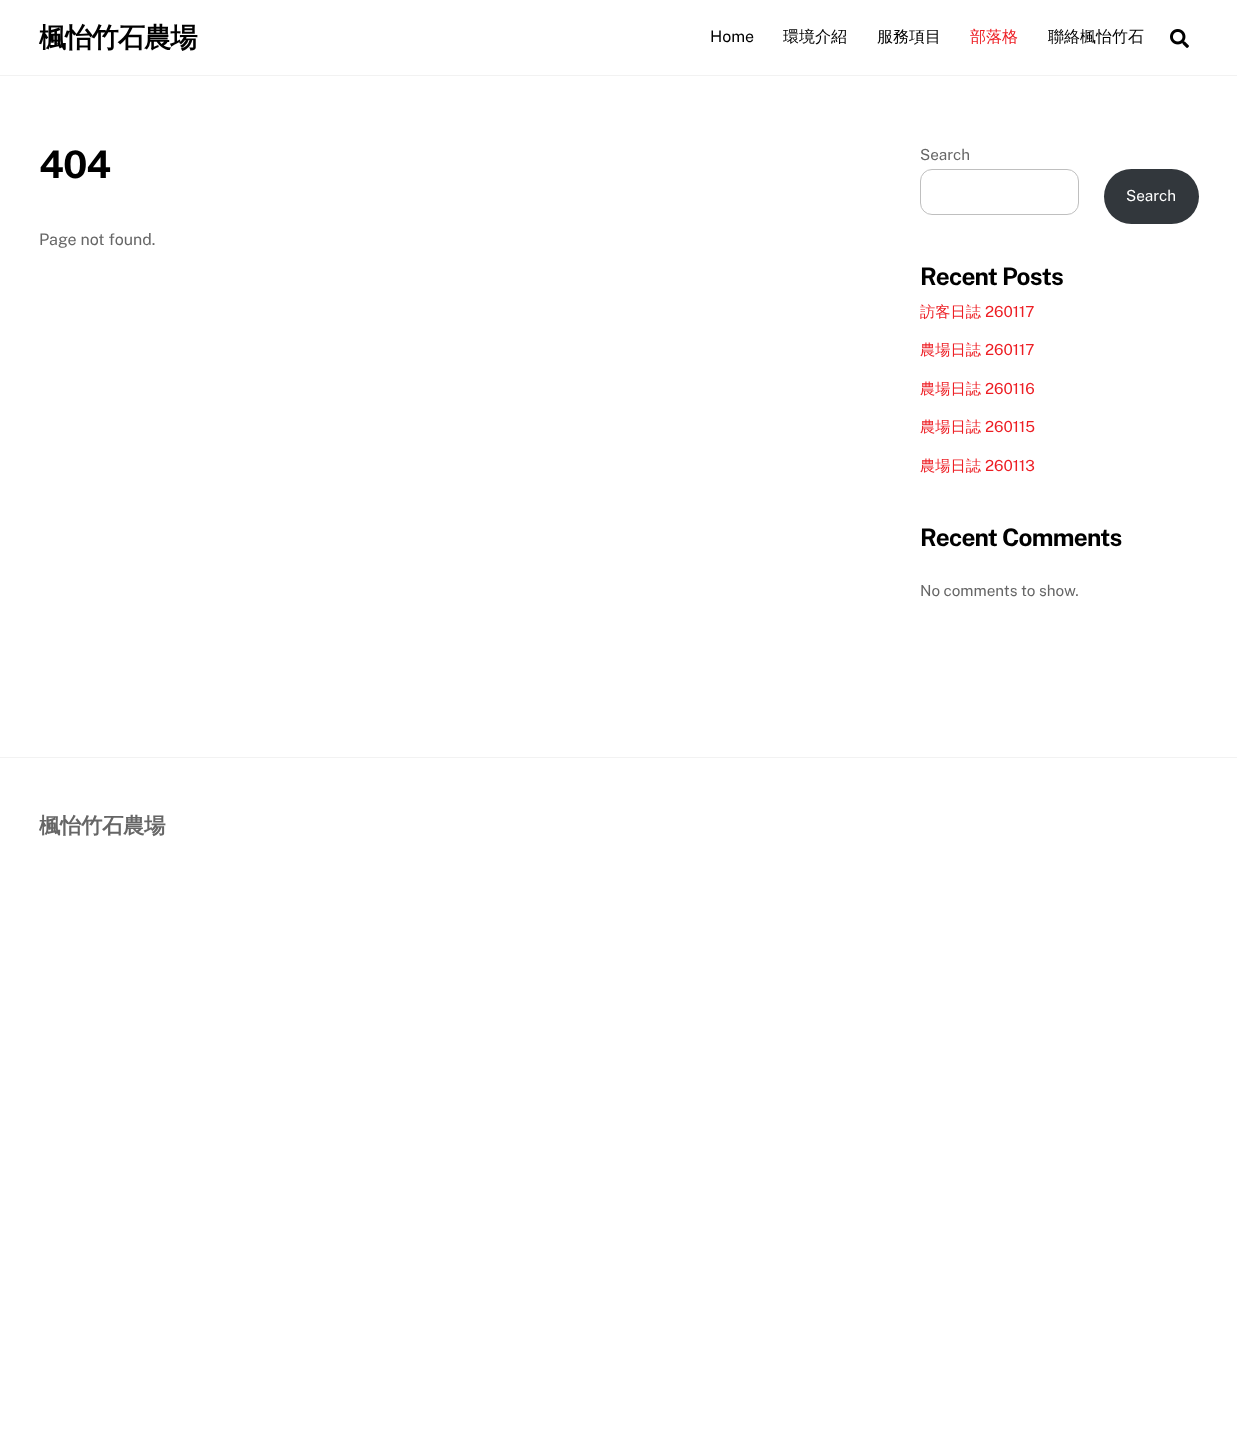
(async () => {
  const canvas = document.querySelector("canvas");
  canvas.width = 1237;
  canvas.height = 1437;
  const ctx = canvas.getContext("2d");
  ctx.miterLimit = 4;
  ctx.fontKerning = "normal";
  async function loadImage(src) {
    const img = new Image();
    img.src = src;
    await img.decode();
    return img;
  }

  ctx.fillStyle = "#ffffff";
  ctx.fillRect(0, 0, 1237, 1437);
  ctx.fillStyle = "#f2f2f2";
  ctx.fillRect(0, 75, 1237, 1);
  ctx.drawImage(await loadImage("img/1.png"), 1170, 29, 19, 19);
  ctx.beginPath();
  ctx.roundRect(920.5, 169.5, 158, 45, 11.5);
  ctx.strokeStyle = "#bfbfbf";
  ctx.stroke();
  ctx.fillStyle = "#32373c";
  ctx.beginPath();
  ctx.roundRect(1104, 169, 95, 55, 27.5);
  ctx.fill();
  ctx.fillStyle = "#f2f2f2";
  ctx.fillRect(0, 757, 1237, 1);
  ctx.letterSpacing = "-1px";
  ctx.font = "bold 27.25px WenQuanYi Zen Hei";
  ctx.fillStyle = "#000000";
  ctx.fillText("楓怡竹石農場", 39, 47);
  ctx.letterSpacing = "0px";
  ctx.font = "16px Public Sans";
  ctx.fillText("Home", 710, 42);
  ctx.font = "500 16px WenQuanYi Zen Hei";
  ctx.fillText("環境介紹", 783, 42);
  ctx.fillText("服務項目", 877, 42);
  ctx.fillStyle = "#ed1e24";
  ctx.fillText("部落格", 970, 42);
  ctx.fillStyle = "#000000";
  ctx.fillText("聯絡楓怡竹石", 1048, 42);
  ctx.letterSpacing = "-1px";
  ctx.font = "bold 38px Public Sans";
  ctx.fillText("404", 39, 178);
  ctx.letterSpacing = "0px";
  ctx.font = "16px Public Sans";
  ctx.fillStyle = "#666666";
  ctx.fillText("Page not found.", 39, 245);
  ctx.font = "15.25px Public Sans";
  ctx.fillText("Search", 920, 160);
  ctx.fillStyle = "#ffffff";
  ctx.fillText("Search", 1126, 201);
  ctx.letterSpacing = "-0.75px";
  ctx.font = "bold 24.25px Public Sans";
  ctx.fillStyle = "#000000";
  ctx.fillText("Recent Posts", 920, 285);
  ctx.letterSpacing = "0px";
  ctx.font = "500 15.25px WenQuanYi Zen Hei";
  ctx.fillStyle = "#ed1e24";
  ctx.fillText("訪客日誌", 920, 317);
  ctx.font = "15.25px Public Sans";
  ctx.fillText("260117", 985, 317);
  ctx.font = "500 15.25px WenQuanYi Zen Hei";
  ctx.fillText("農場日誌", 920, 355);
  ctx.font = "15.25px Public Sans";
  ctx.fillText("260117", 985, 355);
  ctx.font = "500 15.25px WenQuanYi Zen Hei";
  ctx.fillText("農場日誌", 920, 394);
  ctx.font = "15.25px Public Sans";
  ctx.fillText("260116", 985, 394);
  ctx.font = "500 15.25px WenQuanYi Zen Hei";
  ctx.fillText("農場日誌", 920, 432);
  ctx.font = "15.25px Public Sans";
  ctx.fillText("260115", 985, 432);
  ctx.font = "500 15.25px WenQuanYi Zen Hei";
  ctx.fillText("農場日誌", 920, 471);
  ctx.font = "15.25px Public Sans";
  ctx.fillText("260113", 985, 471);
  ctx.letterSpacing = "-0.75px";
  ctx.font = "bold 24.25px Public Sans";
  ctx.fillStyle = "#000000";
  ctx.fillText("Recent Comments", 920, 546);
  ctx.letterSpacing = "0px";
  ctx.font = "15.25px Public Sans";
  ctx.fillStyle = "#666666";
  ctx.fillText("No comments to show.", 920, 596);
  ctx.letterSpacing = "-0.5px";
  ctx.font = "bold 21.5px WenQuanYi Zen Hei";
  ctx.fillText("楓怡竹石農場", 39, 833);
})();
